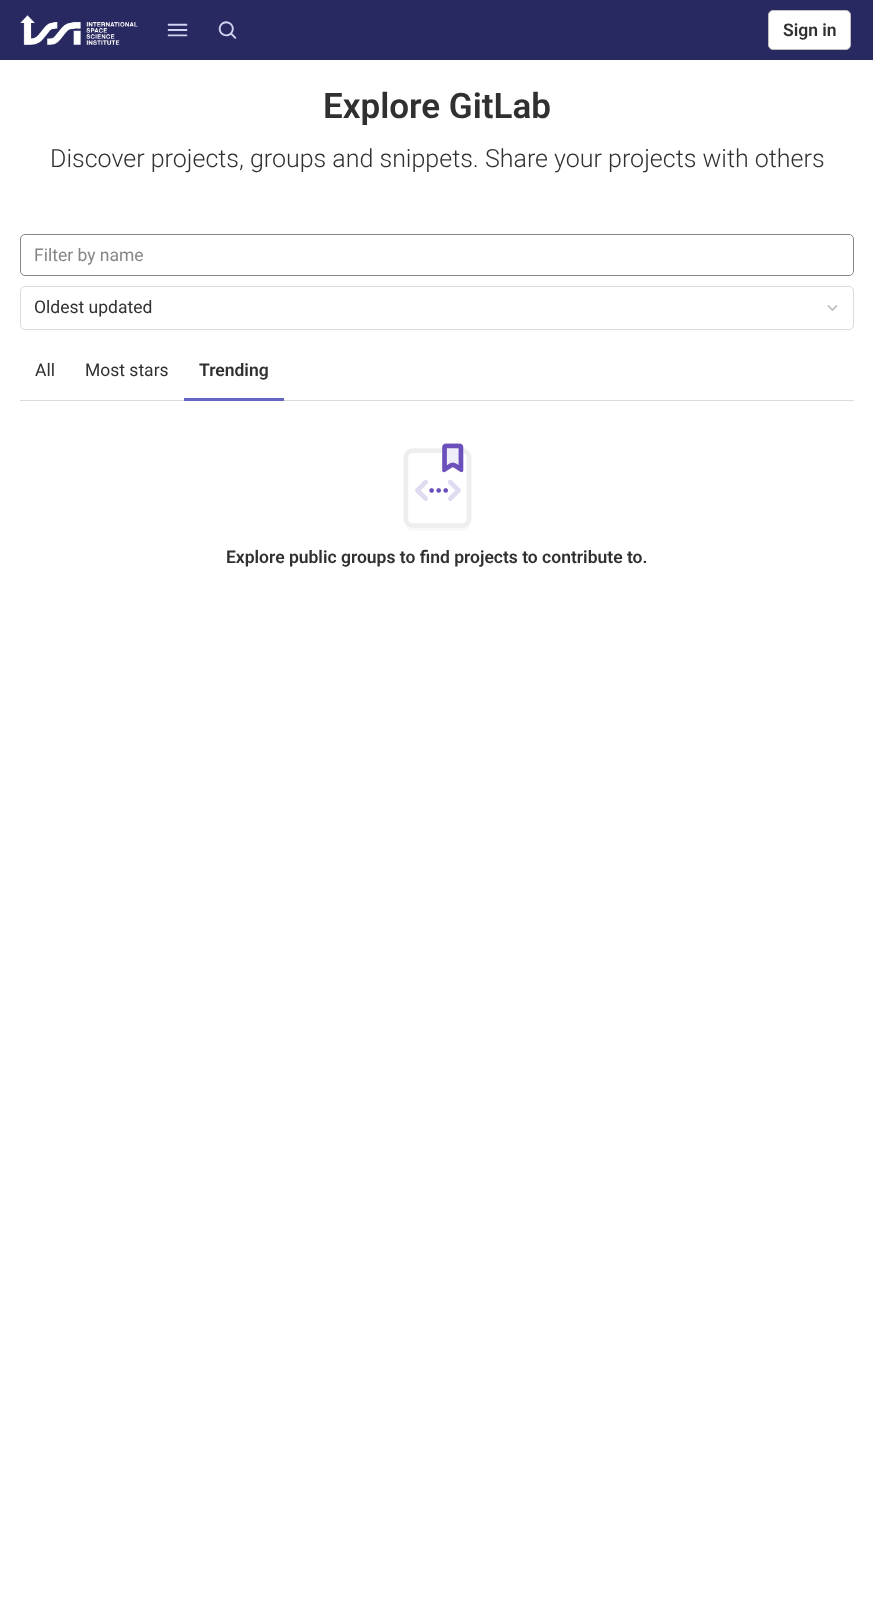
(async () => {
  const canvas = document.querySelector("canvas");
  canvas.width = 873;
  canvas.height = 1623;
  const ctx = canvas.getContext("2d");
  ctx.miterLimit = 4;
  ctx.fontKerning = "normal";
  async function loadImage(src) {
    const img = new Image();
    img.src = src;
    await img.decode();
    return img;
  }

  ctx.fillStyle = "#ffffff";
  ctx.fillRect(0, 0, 873, 1623);
  ctx.fillStyle = "#292961";
  ctx.fillRect(0, 0, 873, 60);
  ctx.drawImage(await loadImage("img/1.png"), 20, 15, 118, 30);
  ctx.drawImage(await loadImage("img/2.png"), 167, 23, 21, 14);
  ctx.drawImage(await loadImage("img/3.png"), 218, 21, 19, 18);
  ctx.fillStyle = "#ffffff";
  ctx.beginPath();
  ctx.roundRect(768.5, 10.5, 82, 39, 4.5);
  ctx.fill();
  ctx.strokeStyle = "#bfbfbf";
  ctx.stroke();
  ctx.fillStyle = "#dbdbdb";
  ctx.fillRect(20, 400, 834, 1);
  ctx.beginPath();
  ctx.roundRect(20.5, 234.5, 833, 41, 4.5);
  ctx.strokeStyle = "#868686";
  ctx.stroke();
  ctx.beginPath();
  ctx.roundRect(20.5, 286.5, 833, 43, 4.5);
  ctx.strokeStyle = "#dbdbdb";
  ctx.stroke();
  ctx.drawImage(await loadImage("img/4.png"), 827, 305, 11, 6);
  ctx.fillStyle = "#6666c4";
  ctx.fillRect(184, 398, 100, 3);
  ctx.drawImage(await loadImage("img/5.png"), 403, 443, 69, 88);
  ctx.font = "600 17.5px Roboto";
  ctx.fillStyle = "#303030";
  ctx.fillText("Sign in", 783, 36);
  ctx.font = "600 35px Roboto";
  ctx.fillText("Explore GitLab", 323, 118);
  ctx.font = "300 25px Roboto";
  ctx.fillText("Discover projects, groups and snippets. Share your projects with others", 50, 167);
  ctx.font = "17.5px Roboto";
  ctx.fillStyle = "#868686";
  ctx.fillText("Filter by name", 34, 261);
  ctx.fillStyle = "#303030";
  for (const [text, x, y] of [
    ["Oldest updated", 34, 313],
    ["All", 35, 376],
    ["Most stars", 85, 376],
  ]) {
    ctx.fillText(text, x, y);
  }
  ctx.font = "600 17.5px Roboto";
  ctx.fillText("Trending", 199, 376);
  ctx.fillText("Explore public groups to find projects to contribute to.", 226, 563);
})();
